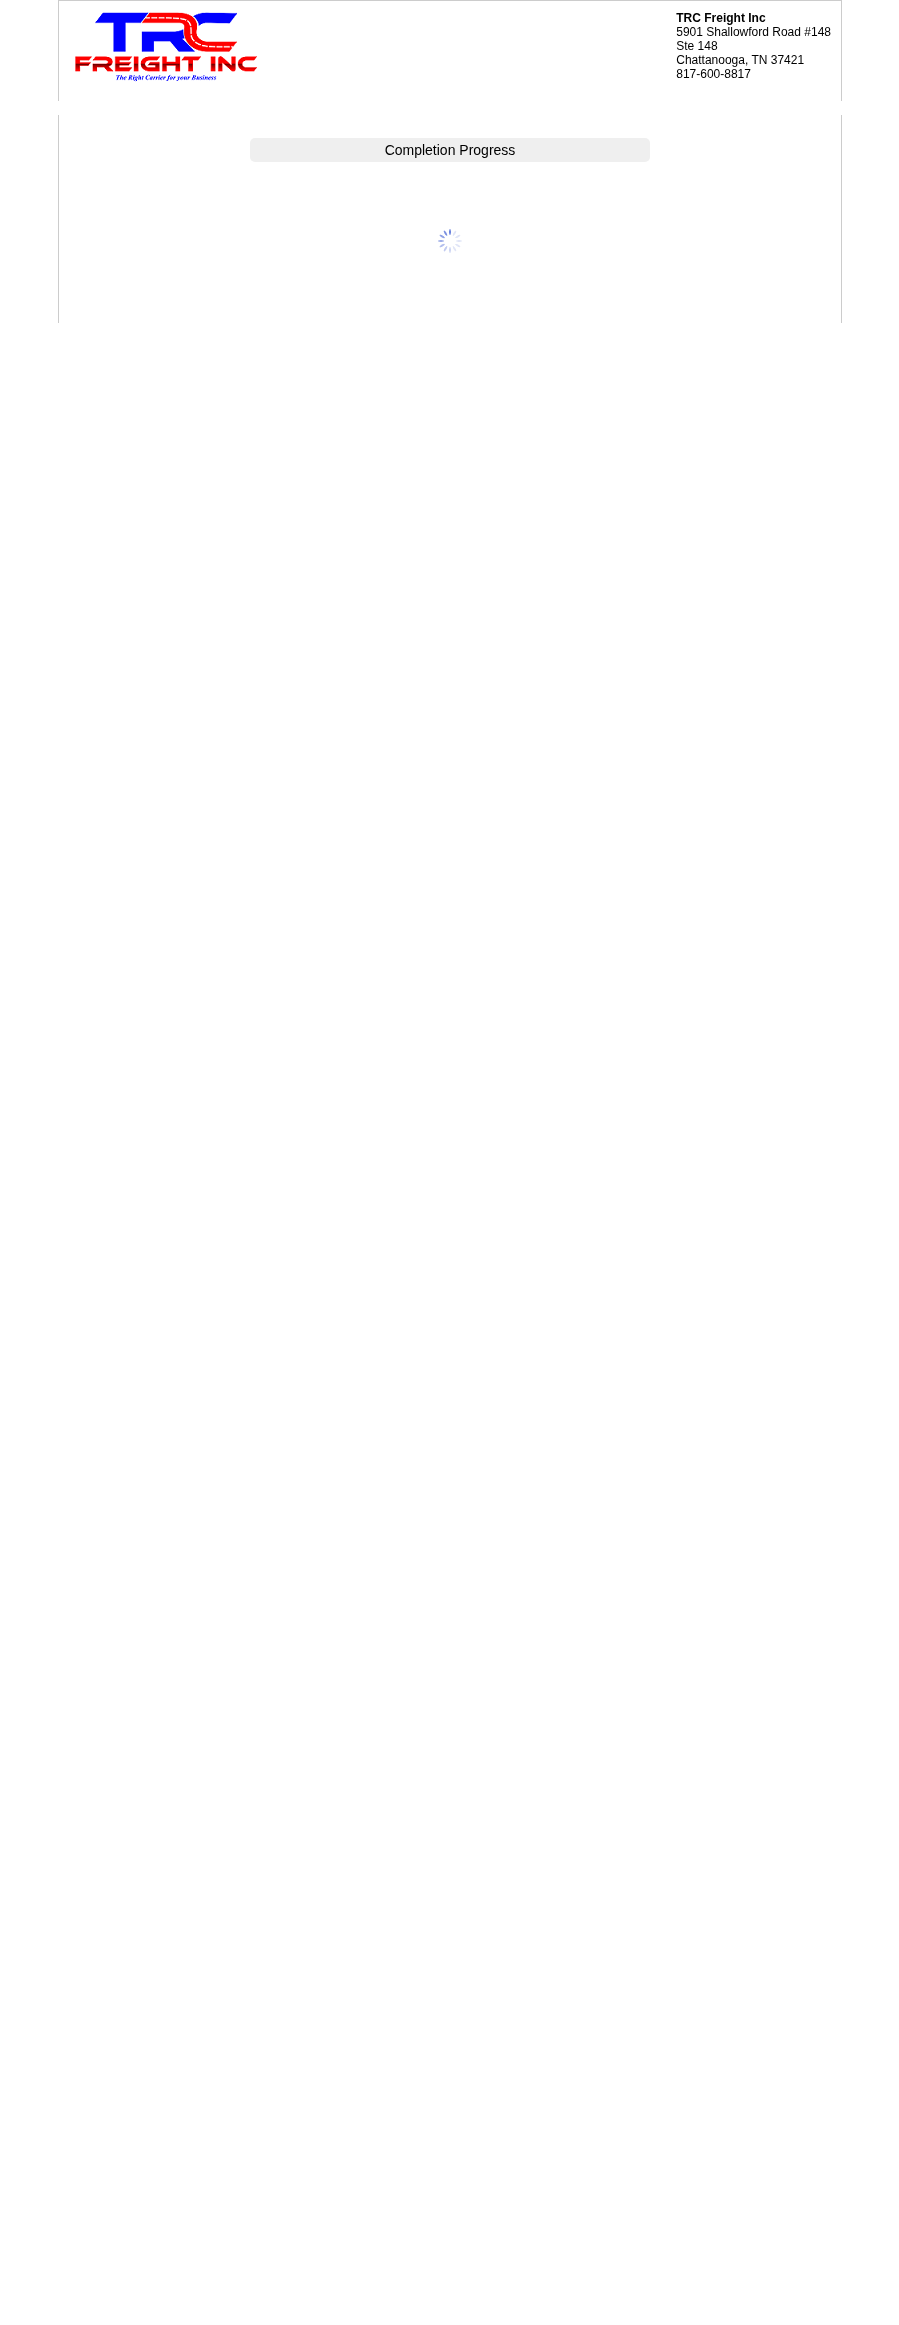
(async () => {
  const canvas = document.querySelector("canvas");
  canvas.width = 899;
  canvas.height = 2325;
  const ctx = canvas.getContext("2d");
  ctx.miterLimit = 4;
  ctx.fontKerning = "normal";
  async function loadImage(src) {
    const img = new Image();
    img.src = src;
    await img.decode();
    return img;
  }

  ctx.fillStyle = "#ffffff";
  ctx.fillRect(0, 0, 899, 2325);
  ctx.drawImage(await loadImage("img/1.png"), 58, 0, 784, 323);
})();
